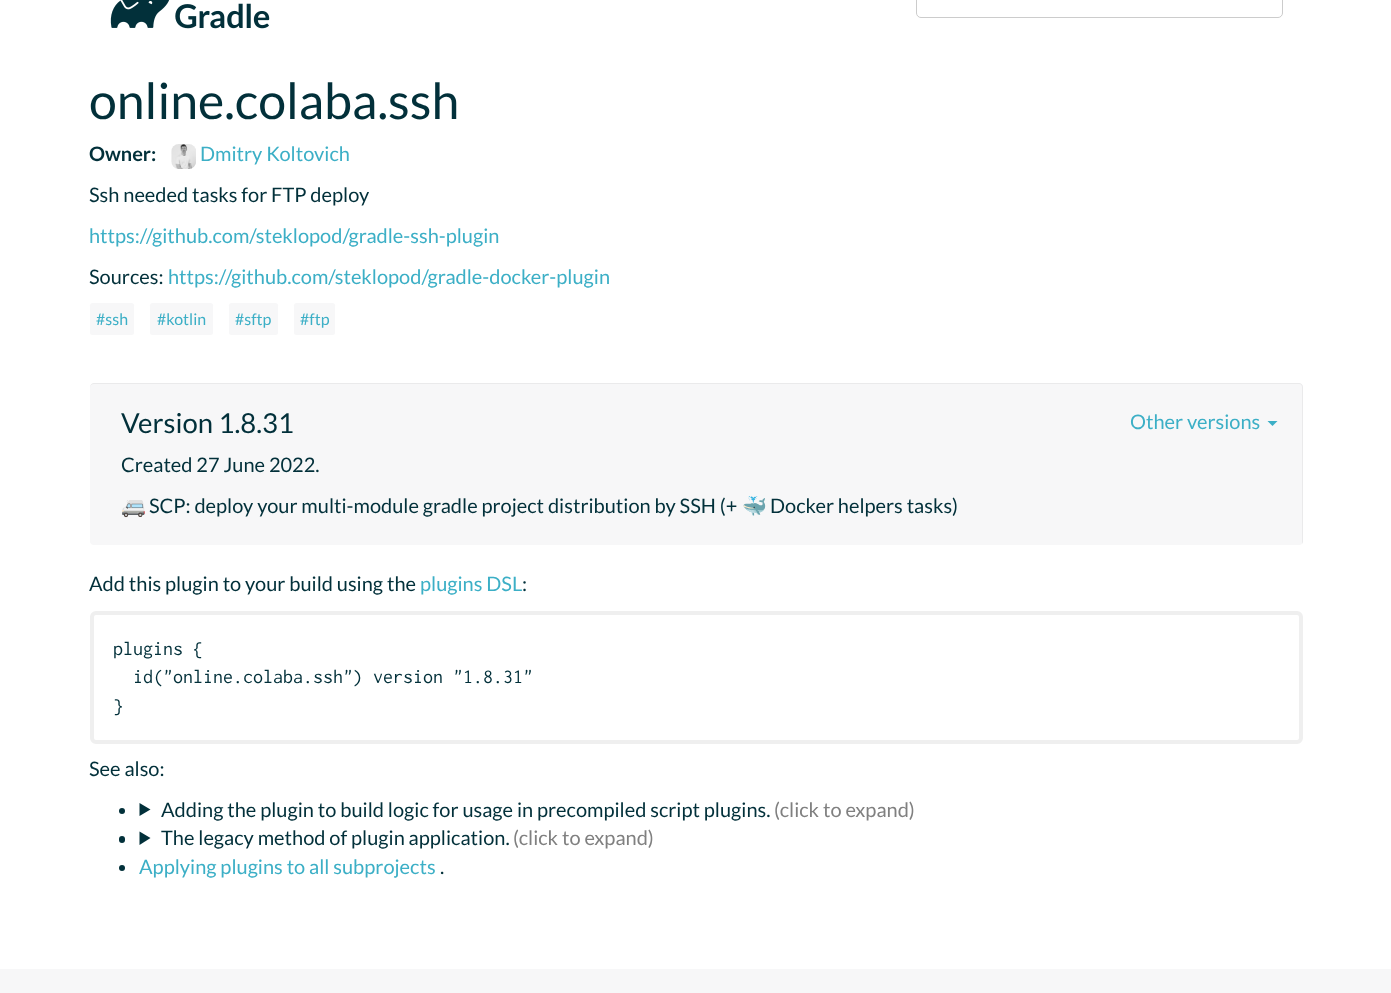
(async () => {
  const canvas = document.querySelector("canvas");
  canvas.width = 1391;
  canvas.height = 993;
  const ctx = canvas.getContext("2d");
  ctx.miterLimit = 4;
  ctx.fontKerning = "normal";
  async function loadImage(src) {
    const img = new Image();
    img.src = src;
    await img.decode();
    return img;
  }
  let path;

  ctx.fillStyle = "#ffffff";
  ctx.fillRect(0, 0, 1391, 993);
  ctx.drawImage(await loadImage("img/1.png"), 110, 0, 160, 29);
  ctx.beginPath();
  ctx.roundRect(916.5, -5.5, 366, 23, 4.5);
  ctx.strokeStyle = "#cccccc";
  ctx.stroke();
  ctx.drawImage(await loadImage("img/2.png"), 171, 144, 25, 25);
  ctx.fillStyle = "#f7f7f8";
  ctx.beginPath();
  ctx.roundRect(90, 303, 44, 32, 2.5);
  ctx.fill();
  ctx.beginPath();
  ctx.roundRect(150, 303, 63, 32, 2.5);
  ctx.fill();
  ctx.beginPath();
  ctx.roundRect(229, 303, 49, 32, 2.5);
  ctx.fill();
  ctx.beginPath();
  ctx.roundRect(294, 303, 41, 32, 2.5);
  ctx.fill();
  ctx.beginPath();
  ctx.roundRect(90, 383, 1213, 162, 4);
  ctx.fill();
  ctx.fillStyle = "rgba(0, 0, 0, 0.05)";
  path = new Path2D("M94 384H1299C1301 384 1302 385 1302 388V544C1303 543 1303 542 1303 541V387C1303 385 1301 383 1299 383H94C92 383 90 385 90 387V388C90 385 92 384 94 384Z");
  ctx.fill(path);
  ctx.fillStyle = "#3cafc6";
  path = new Path2D("M1267.5 421H1277.5L1272.5 426Z");
  ctx.fill(path);
  ctx.beginPath();
  ctx.roundRect(92, 613, 1209, 129, 4);
  ctx.strokeStyle = "#efefef";
  ctx.lineWidth = 4;
  ctx.stroke();
  ctx.fillStyle = "#02303a";
  ctx.beginPath();
  ctx.arc(122, 811, 3, 0, Math.PI * 2);
  ctx.fill();
  path = new Path2D("M139.5 803L150.5 809.5L139.5 816Z");
  ctx.fill(path);
  ctx.beginPath();
  ctx.roundRect(119, 836, 6, 7, 3);
  ctx.fill();
  path = new Path2D("M139.5 831.5L150.5 838L139.5 845Z");
  ctx.fill(path);
  ctx.beginPath();
  ctx.arc(122, 868, 3, 0, Math.PI * 2);
  ctx.fill();
  ctx.fillStyle = "#f7f7f8";
  ctx.fillRect(0, 969, 1391, 24);
  ctx.font = "50px Lato";
  ctx.fillStyle = "#02303a";
  ctx.fillText("online.colaba.ssh", 89, 119);
  ctx.font = "bold 20px Lato";
  ctx.fillText("Owner:", 89, 161);
  ctx.font = "20px Lato";
  ctx.fillStyle = "#3cafc6";
  ctx.fillText("Dmitry Koltovich", 200, 161);
  ctx.fillStyle = "#02303a";
  ctx.fillText("Ssh needed tasks for FTP deploy", 89, 202);
  ctx.fillStyle = "#3cafc6";
  ctx.fillText("https://github.com/steklopod/gradle-ssh-plugin", 89, 243);
  ctx.fillStyle = "#02303a";
  ctx.fillText("Sources:", 89, 284);
  ctx.fillStyle = "#3cafc6";
  ctx.fillText("https://github.com/steklopod/gradle-docker-plugin", 168, 284);
  ctx.font = "16px Lato";
  for (const [text, x, y] of [
    ["#ssh", 96, 325],
    ["#kotlin", 157, 325],
    ["#sftp", 235, 325],
    ["#ftp", 300, 325],
  ]) {
    ctx.fillText(text, x, y);
  }
  ctx.font = "27.5px Lato";
  ctx.fillStyle = "#02303a";
  ctx.fillText("Version 1.8.31", 121, 433);
  ctx.font = "20px Lato";
  ctx.fillStyle = "#3cafc6";
  ctx.fillText("Other versions", 1130, 429);
  ctx.fillStyle = "#02303a";
  ctx.fillText("Created 27 June 2022.", 121, 472);
  ctx.font = "20px Noto Color Emoji";
  ctx.fillText("🚐", 121, 513);
  ctx.font = "20px Lato";
  ctx.fillText("SCP: deploy your multi-module gradle project distribution by SSH (+", 149, 513);
  ctx.font = "20px Noto Color Emoji";
  ctx.fillText("🐳", 742, 513);
  ctx.font = "20px Lato";
  ctx.fillText("Docker helpers tasks)", 770, 513);
  ctx.fillText("Add this plugin to your build using the", 89, 591);
  ctx.fillStyle = "#3cafc6";
  ctx.fillText("plugins DSL", 420, 591);
  ctx.fillStyle = "#02303a";
  ctx.fillText(":", 522, 591);
  ctx.font = "500 20px Inconsolata";
  for (const [text, x, y] of [
    ["plugins {", 113, 655],
    ["id(\"online.colaba.ssh\") version \"1.8.31\"", 133, 683],
    ["}", 113, 712],
  ]) {
    ctx.fillText(text, x, y);
  }
  ctx.font = "20px Lato";
  ctx.fillText("See also:", 89, 776);
  ctx.fillText("Adding the plugin to build logic for usage in precompiled script plugins.", 161, 817);
  ctx.fillStyle = "#808080";
  ctx.fillText("(click to expand)", 774, 817);
  ctx.fillStyle = "#02303a";
  ctx.fillText("The legacy method of plugin application.", 161, 845);
  ctx.fillStyle = "#808080";
  ctx.fillText("(click to expand)", 513, 845);
  ctx.fillStyle = "#3cafc6";
  ctx.fillText("Applying plugins to all subprojects", 139, 874);
  ctx.fillStyle = "#02303a";
  ctx.fillText(".", 440, 874);
})();
